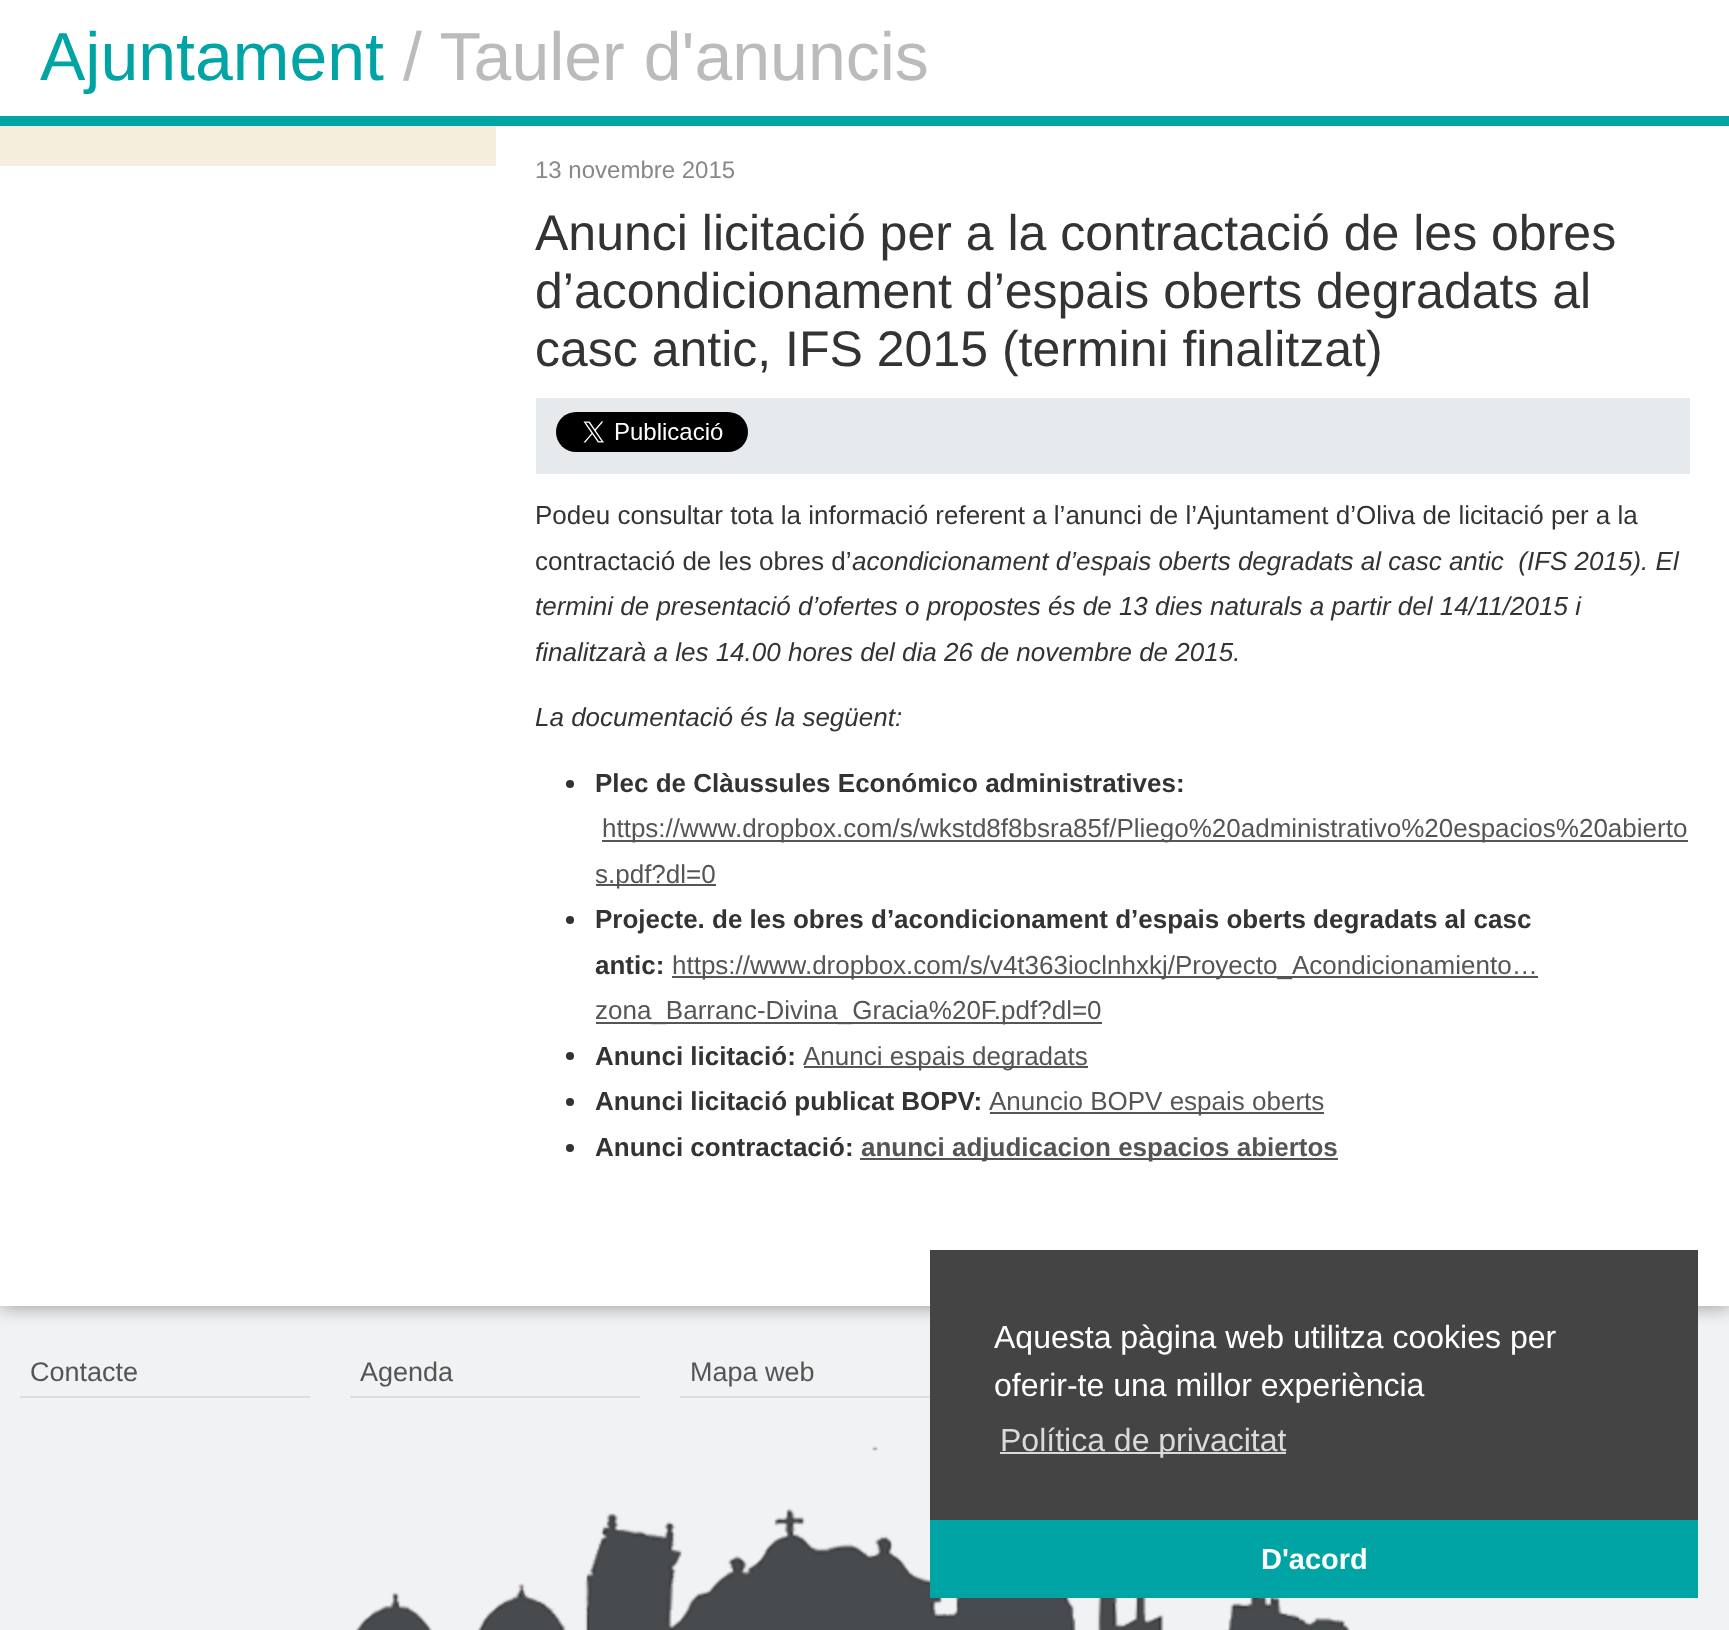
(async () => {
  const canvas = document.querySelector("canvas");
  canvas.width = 1729;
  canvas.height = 1630;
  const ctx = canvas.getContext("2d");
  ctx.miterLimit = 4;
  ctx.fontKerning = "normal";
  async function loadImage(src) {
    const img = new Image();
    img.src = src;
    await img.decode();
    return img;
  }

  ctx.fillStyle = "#f1f2f3";
  ctx.fillRect(0, 0, 1729, 1630);
  ctx.fillStyle = "rgba(0, 0, 0, 0.4)";
  ctx.filter = "blur(10px)";
  ctx.beginPath();
  ctx.rect(0, -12, 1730, 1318);
  ctx.fill();
  ctx.filter = "none";
  for (const [x, y, w, h, color] of [
    [0, 0, 1729, 1306, "#ffffff"],
    [0, 116, 1729, 10, "#01a4a4"],
    [0, 126, 496, 40, "#f5eedc"],
    [536, 398, 1154, 76, "#e7eaec"],
  ]) {
    ctx.fillStyle = color;
    ctx.fillRect(x, y, w, h);
  }
  ctx.drawImage(await loadImage("img/1.png"), 556, 412, 192, 40);
  ctx.fillStyle = "#333333";
  ctx.beginPath();
  ctx.arc(570, 784, 4, 0, Math.PI * 2);
  ctx.fill();
  ctx.fillStyle = "#555555";
  ctx.fillRect(602, 840, 1086, 2);
  ctx.fillRect(596, 884, 120, 2);
  ctx.fillStyle = "#333333";
  ctx.beginPath();
  ctx.arc(570, 920, 4, 0, Math.PI * 2);
  ctx.fill();
  ctx.fillStyle = "#555555";
  ctx.fillRect(672, 976, 866, 2);
  ctx.fillRect(596, 1022, 506, 2);
  ctx.fillStyle = "#333333";
  ctx.beginPath();
  ctx.arc(570, 1056, 4, 0, Math.PI * 2);
  ctx.fill();
  ctx.fillStyle = "#555555";
  ctx.fillRect(804, 1066, 284, 2);
  ctx.fillStyle = "#333333";
  ctx.beginPath();
  ctx.arc(570, 1102, 4, 0, Math.PI * 2);
  ctx.fill();
  ctx.fillStyle = "#555555";
  ctx.fillRect(990, 1112, 334, 2);
  ctx.fillStyle = "#333333";
  ctx.beginPath();
  ctx.arc(570, 1148, 4, 0, Math.PI * 2);
  ctx.fill();
  for (const [x, y, w, h, color] of [
    [860, 1158, 478, 2, "#555555"],
    [20, 1396, 290, 2, "#dddddd"],
    [350, 1396, 290, 2, "#dddddd"],
    [680, 1396, 250, 2, "#dddddd"],
  ]) {
    ctx.fillStyle = color;
    ctx.fillRect(x, y, w, h);
  }
  ctx.drawImage(await loadImage("img/2.png"), 355, 1446, 995, 184);
  for (const [x, y, w, h, color] of [
    [930, 1250, 768, 270, "#444444"],
    [1000, 1452, 286, 2, "#dadada"],
    [930, 1520, 768, 78, "#00a4a4"],
  ]) {
    ctx.fillStyle = color;
    ctx.fillRect(x, y, w, h);
  }
  ctx.font = "68px Liberation Sans";
  ctx.fillStyle = "#01a4a4";
  ctx.fillText("Ajuntament", 40, 80);
  ctx.fillStyle = "#bbbbbb";
  ctx.fillText("/ Tauler d'anuncis", 403, 80);
  ctx.font = "24px Liberation Sans";
  ctx.fillStyle = "#888888";
  ctx.fillText("13 novembre 2015", 535, 178);
  ctx.font = "50px Liberation Sans";
  ctx.fillStyle = "#333333";
  for (const [text, x, y] of [
    ["Anunci licitació per a la contractació de les obres", 535, 250],
    ["d’acondicionament d’espais oberts degradats al", 535, 308],
    ["casc antic, IFS 2015 (termini finalitzat)", 535, 366],
  ]) {
    ctx.fillText(text, x, y);
  }
  ctx.font = "26px Liberation Sans";
  ctx.fillText("Podeu consultar tota la informació referent a l’anunci de l’Ajuntament d’Oliva de licitació per a la", 535, 524);
  ctx.fillText("contractació de les obres d’", 535, 570);
  ctx.font = "italic 26px Liberation Sans";
  for (const [text, x, y] of [
    ["acondicionament d’espais oberts degradats al casc antic  (IFS 2015). El", 852, 570],
    ["termini de presentació d’ofertes o propostes és de 13 dies naturals a partir del 14/11/2015 i", 535, 615],
    ["finalitzarà a les 14.00 hores del dia 26 de novembre de 2015.", 535, 661],
    ["La documentació és la següent:", 535, 726],
  ]) {
    ctx.fillText(text, x, y);
  }
  ctx.font = "bold 26px Liberation Sans";
  ctx.fillText("Plec de Clàussules Económico administratives:", 595, 792);
  ctx.font = "26px Liberation Sans";
  ctx.fillStyle = "#555555";
  ctx.fillText("https://www.dropbox.com/s/wkstd8f8bsra85f/Pliego%20administrativo%20espacios%20abierto", 602, 837);
  ctx.fillText("s.pdf?dl=0", 595, 883);
  ctx.font = "bold 26px Liberation Sans";
  ctx.fillStyle = "#333333";
  ctx.fillText("Projecte. de les obres d’acondicionament d’espais oberts degradats al casc", 595, 928);
  ctx.fillText("antic:", 595, 974);
  ctx.font = "26px Liberation Sans";
  ctx.fillStyle = "#555555";
  ctx.fillText("https://www.dropbox.com/s/v4t363ioclnhxkj/Proyecto_Acondicionamiento…", 672, 974);
  ctx.fillText("zona_Barranc-Divina_Gracia%20F.pdf?dl=0", 595, 1019);
  ctx.font = "bold 26px Liberation Sans";
  ctx.fillStyle = "#333333";
  ctx.fillText("Anunci licitació:", 595, 1065);
  ctx.font = "26px Liberation Sans";
  ctx.fillStyle = "#555555";
  ctx.fillText("Anunci espais degradats", 803, 1065);
  ctx.font = "bold 26px Liberation Sans";
  ctx.fillStyle = "#333333";
  ctx.fillText("Anunci licitació publicat BOPV:", 595, 1110);
  ctx.font = "26px Liberation Sans";
  ctx.fillStyle = "#555555";
  ctx.fillText("Anuncio BOPV espais oberts", 989, 1110);
  ctx.font = "bold 26px Liberation Sans";
  ctx.fillStyle = "#333333";
  ctx.fillText("Anunci contractació:", 595, 1156);
  ctx.fillStyle = "#555555";
  ctx.fillText("anunci adjudicacion espacios abiertos", 861, 1156);
  ctx.font = "27px Liberation Sans";
  for (const [text, x, y] of [
    ["Contacte", 30, 1381],
    ["Agenda", 360, 1381],
    ["Mapa web", 690, 1381],
  ]) {
    ctx.fillText(text, x, y);
  }
  ctx.font = "32px Liberation Sans";
  ctx.fillStyle = "#ffffff";
  ctx.fillText("Aquesta pàgina web utilitza cookies per", 994, 1348);
  ctx.fillText("oferir-te una millor experiència", 994, 1396);
  ctx.fillStyle = "#dadada";
  ctx.fillText("Política de privacitat", 1000, 1451);
  ctx.font = "bold 29px Liberation Sans";
  ctx.fillStyle = "#ffffff";
  ctx.fillText("D'acord", 1261, 1569);
})();
